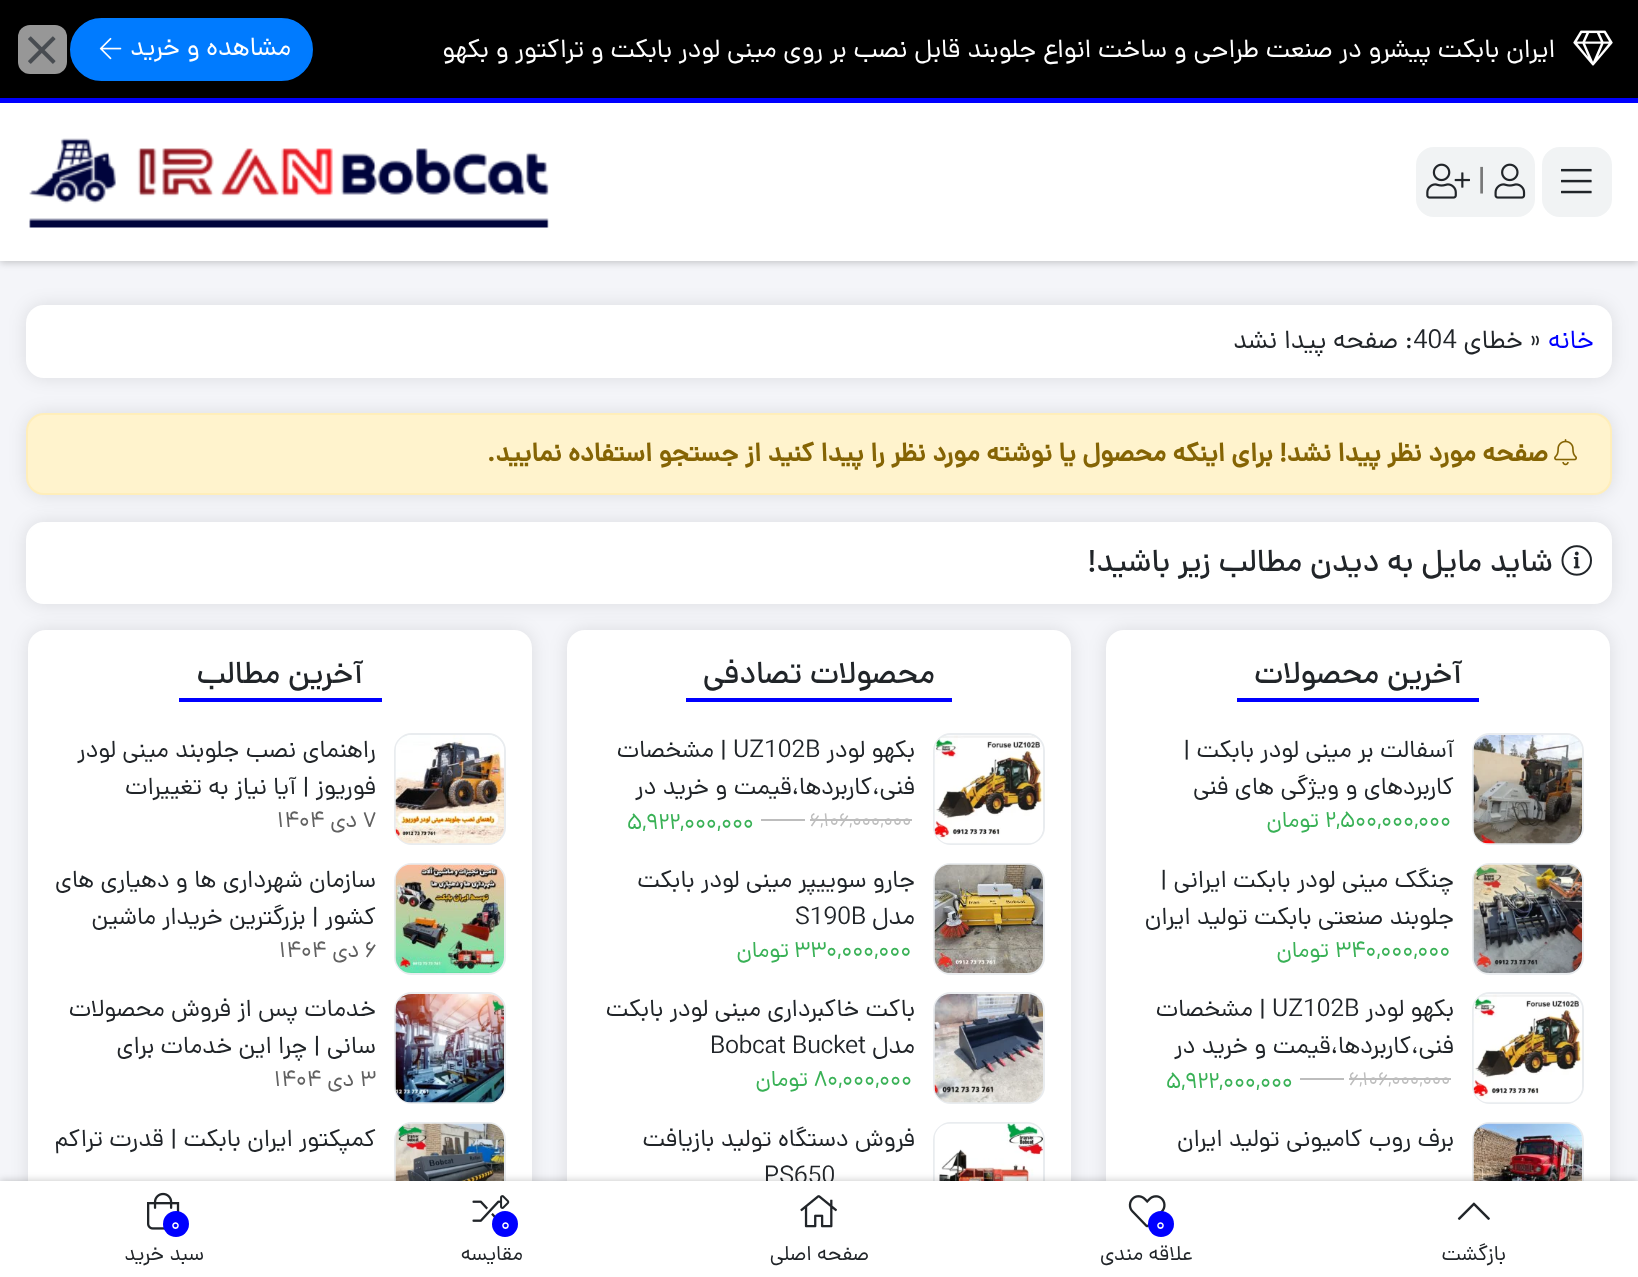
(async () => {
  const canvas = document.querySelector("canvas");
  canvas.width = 1638;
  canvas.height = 1277;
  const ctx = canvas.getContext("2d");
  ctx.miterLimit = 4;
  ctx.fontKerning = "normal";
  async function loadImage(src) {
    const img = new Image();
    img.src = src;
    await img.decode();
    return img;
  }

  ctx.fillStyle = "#f4f5f9";
  ctx.fillRect(0, 0, 1638, 1277);
  ctx.fillStyle = "#000000";
  ctx.fillRect(0, 0, 1638, 98);
  ctx.drawImage(await loadImage("img/1.png"), 1573, 30, 40, 36);
  ctx.fillStyle = "#007bff";
  ctx.beginPath();
  ctx.roundRect(71, 19, 241, 61, 30.5);
  ctx.fill();
  ctx.strokeStyle = "#007bff";
  ctx.lineWidth = 2;
  ctx.stroke();
  ctx.drawImage(await loadImage("img/2.png"), 99, 37, 23, 23);
  ctx.fillStyle = "#979797";
  ctx.beginPath();
  ctx.roundRect(18, 25, 49, 49, 12);
  ctx.fill();
  ctx.drawImage(await loadImage("img/3.png"), 28, 36, 28, 28);
  ctx.fillStyle = "rgba(0, 0, 0, 0.19)";
  ctx.filter = "blur(3.5px)";
  ctx.beginPath();
  ctx.rect(0, 100, 1638, 163);
  ctx.fill();
  ctx.filter = "none";
  ctx.fillStyle = "#ffffff";
  ctx.fillRect(0, 103, 1638, 158);
  ctx.fillStyle = "#0000ff";
  ctx.fillRect(0, 98, 1638, 5);
  ctx.fillStyle = "#f1f3f4";
  ctx.beginPath();
  ctx.roundRect(1543, 148, 68, 68, 17);
  ctx.fill();
  ctx.strokeStyle = "#f1f3f4";
  ctx.stroke();
  ctx.drawImage(await loadImage("img/4.png"), 1561, 168, 31, 26);
  ctx.beginPath();
  ctx.roundRect(1417, 148, 117, 68, 17);
  ctx.fill();
  ctx.stroke();
  ctx.drawImage(await loadImage("img/5.png"), 1494, 163, 32, 36);
  ctx.drawImage(await loadImage("img/6.png"), 1426, 163, 44, 36);
  ctx.drawImage(await loadImage("img/7.png"), 29, 138, 520, 90);
  ctx.fillStyle = "rgba(0, 0, 0, 0.1)";
  ctx.filter = "blur(9px)";
  ctx.beginPath();
  ctx.roundRect(26, 305, 1586, 73, 18);
  ctx.fill();
  ctx.filter = "none";
  ctx.fillStyle = "#ffffff";
  ctx.beginPath();
  ctx.roundRect(26, 305, 1586, 73, 18);
  ctx.fill();
  ctx.fillStyle = "rgba(0, 0, 0, 0.1)";
  ctx.filter = "blur(9px)";
  ctx.beginPath();
  ctx.roundRect(26, 413, 1586, 82, 18);
  ctx.fill();
  ctx.filter = "none";
  ctx.fillStyle = "#fff3cd";
  ctx.beginPath();
  ctx.roundRect(27, 414, 1584, 80, 17);
  ctx.fill();
  ctx.strokeStyle = "#ffeeba";
  ctx.stroke();
  ctx.drawImage(await loadImage("img/8.png"), 1554, 439, 23, 27);
  ctx.fillStyle = "rgba(0, 0, 0, 0.1)";
  ctx.filter = "blur(9px)";
  ctx.beginPath();
  ctx.roundRect(26, 522, 1586, 82, 18);
  ctx.fill();
  ctx.filter = "none";
  ctx.fillStyle = "#ffffff";
  ctx.beginPath();
  ctx.roundRect(27, 523, 1584, 80, 17);
  ctx.fill();
  ctx.strokeStyle = "#ffffff";
  ctx.stroke();
  ctx.drawImage(await loadImage("img/9.png"), 1561, 545, 31, 31);
  ctx.fillStyle = "rgba(0, 0, 0, 0.1)";
  ctx.filter = "blur(9px)";
  ctx.beginPath();
  ctx.roundRect(1106, 630, 504, 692, 18);
  ctx.fill();
  ctx.filter = "none";
  ctx.fillStyle = "#ffffff";
  ctx.beginPath();
  ctx.roundRect(1106, 630, 504, 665, 18);
  ctx.fill();
  ctx.fillStyle = "#0000ff";
  ctx.fillRect(1237, 698, 242, 4);
  ctx.beginPath();
  ctx.roundRect(1473, 734, 110, 110, 17);
  ctx.strokeStyle = "#e9ecef";
  ctx.stroke();
  ctx.drawImage(await loadImage("img/10.png"), 1473, 735, 109, 109);
  ctx.beginPath();
  ctx.roundRect(1473, 864, 110, 110, 17);
  ctx.stroke();
  ctx.drawImage(await loadImage("img/11.png"), 1473, 864, 109, 109);
  ctx.beginPath();
  ctx.roundRect(1473, 993, 110, 110, 17);
  ctx.stroke();
  ctx.drawImage(await loadImage("img/12.png"), 1473, 994, 109, 109);
  ctx.fillStyle = "#bdbdbd";
  ctx.fillRect(1349, 1078, 102, 2);
  ctx.fillRect(1300, 1078, 44, 2);
  ctx.beginPath();
  ctx.roundRect(1473, 1123, 110, 110, 17);
  ctx.stroke();
  ctx.drawImage(await loadImage("img/13.png"), 1473, 1123, 109, 58);
  ctx.fillStyle = "rgba(0, 0, 0, 0.1)";
  ctx.filter = "blur(9px)";
  ctx.beginPath();
  ctx.roundRect(567, 630, 504, 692, 18);
  ctx.fill();
  ctx.filter = "none";
  ctx.fillStyle = "#ffffff";
  ctx.beginPath();
  ctx.roundRect(567, 630, 504, 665, 18);
  ctx.fill();
  ctx.fillStyle = "#0000ff";
  ctx.fillRect(686, 698, 266, 4);
  ctx.beginPath();
  ctx.roundRect(934, 734, 110, 110, 17);
  ctx.stroke();
  ctx.drawImage(await loadImage("img/14.png"), 934, 735, 109, 109);
  ctx.fillStyle = "#bdbdbd";
  ctx.fillRect(810, 819, 102, 2);
  ctx.fillRect(761, 819, 44, 2);
  ctx.beginPath();
  ctx.roundRect(934, 864, 110, 110, 17);
  ctx.stroke();
  ctx.drawImage(await loadImage("img/15.png"), 934, 864, 109, 109);
  ctx.beginPath();
  ctx.roundRect(934, 993, 110, 110, 17);
  ctx.stroke();
  ctx.drawImage(await loadImage("img/16.png"), 934, 994, 109, 109);
  ctx.beginPath();
  ctx.roundRect(934, 1123, 110, 110, 17);
  ctx.stroke();
  ctx.drawImage(await loadImage("img/17.png"), 934, 1123, 109, 58);
  ctx.fillStyle = "rgba(0, 0, 0, 0.1)";
  ctx.filter = "blur(9px)";
  ctx.beginPath();
  ctx.roundRect(28, 630, 504, 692, 18);
  ctx.fill();
  ctx.filter = "none";
  ctx.fillStyle = "#ffffff";
  ctx.beginPath();
  ctx.roundRect(28, 630, 504, 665, 18);
  ctx.fill();
  ctx.fillStyle = "#0000ff";
  ctx.fillRect(179, 698, 203, 4);
  ctx.beginPath();
  ctx.roundRect(395, 734, 110, 110, 17);
  ctx.stroke();
  ctx.drawImage(await loadImage("img/18.png"), 395, 735, 109, 109);
  ctx.beginPath();
  ctx.roundRect(395, 864, 110, 110, 17);
  ctx.stroke();
  ctx.drawImage(await loadImage("img/19.png"), 395, 864, 109, 109);
  ctx.beginPath();
  ctx.roundRect(395, 993, 110, 110, 17);
  ctx.stroke();
  ctx.drawImage(await loadImage("img/20.png"), 395, 994, 109, 109);
  ctx.beginPath();
  ctx.roundRect(395, 1123, 110, 110, 17);
  ctx.stroke();
  ctx.drawImage(await loadImage("img/21.png"), 395, 1123, 109, 58);
  ctx.fillStyle = "rgba(0, 0, 0, 0.19)";
  ctx.filter = "blur(3.5px)";
  ctx.beginPath();
  ctx.rect(0, 1180, 1638, 96);
  ctx.fill();
  ctx.filter = "none";
  ctx.direction = "rtl";
  ctx.font = "26.25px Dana";
  ctx.fillStyle = "#ffffff";
  ctx.fillText("ایران بابکت پیشرو در صنعت طراحی و ساخت انواع جلوبند قابل نصب بر روی مینی لودر بابکت و تراکتور و بکهو", 1555, 57);
  ctx.fillText("مشاهده و خرید", 291, 55);
  ctx.direction = "ltr";
  ctx.font = "33px Dana";
  ctx.fillStyle = "#777777";
  ctx.fillText("|", 1477, 190);
  ctx.direction = "rtl";
  ctx.font = "26.25px Dana";
  ctx.fillStyle = "#0000ff";
  ctx.fillText("خانه", 1594, 348);
  ctx.direction = "ltr";
  ctx.fillStyle = "#212529";
  ctx.fillText("»", 1529, 348);
  ctx.direction = "rtl";
  ctx.fillText("خطای", 1523, 348);
  ctx.direction = "ltr";
  ctx.fillText("404", 1413, 348);
  ctx.direction = "rtl";
  ctx.fillText(": صفحه پیدا نشد", 1413, 348);
  ctx.font = "bold 26.25px Dana";
  ctx.fillStyle = "#856404";
  ctx.fillText("صفحه مورد نظر پیدا نشد! برای اینکه محصول یا نوشته مورد نظر را پیدا کنید از جستجو استفاده نمایید.", 1548, 461);
  ctx.font = "500 31.5px Dana";
  ctx.fillStyle = "#212529";
  ctx.fillText("شاید مایل به دیدن مطالب زیر باشید!", 1553, 571);
  ctx.fillText("آخرین محصولات", 1462, 683);
  ctx.font = "24.5px Dana";
  ctx.fillText("آسفالت بر مینی لودر بابکت |", 1454, 757);
  ctx.fillText("کاربردهای و ویژگی های فنی", 1454, 794);
  ctx.direction = "ltr";
  ctx.font = "22.75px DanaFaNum";
  ctx.fillStyle = "#39b156";
  ctx.fillText("2,500,000,000", 1325, 827);
  ctx.direction = "rtl";
  ctx.fillText("تومان", 1319, 827);
  ctx.font = "24.5px Dana";
  ctx.fillStyle = "#212529";
  ctx.fillText("چنگک مینی لودر بابکت ایرانی |", 1454, 887);
  ctx.fillText("جلوبند صنعتی بابکت تولید ایران", 1454, 924);
  ctx.direction = "ltr";
  ctx.font = "22.75px DanaFaNum";
  ctx.fillStyle = "#39b156";
  ctx.fillText("340,000,000", 1335, 957);
  ctx.direction = "rtl";
  ctx.fillText("تومان", 1329, 957);
  ctx.font = "24.5px Dana";
  ctx.fillStyle = "#212529";
  ctx.fillText("بکهو لودر", 1454, 1016);
  ctx.direction = "ltr";
  ctx.fillText("UZ102B", 1272, 1016);
  ctx.direction = "rtl";
  ctx.fillText("| مشخصات", 1266, 1016);
  ctx.fillText("فنی،کاربردها،قیمت و خرید در", 1454, 1053);
  ctx.direction = "ltr";
  ctx.font = "19.25px DanaFaNum";
  ctx.fillStyle = "#bdbdbd";
  ctx.fillText("6,106,000,000", 1349, 1085);
  ctx.font = "22.75px DanaFaNum";
  ctx.fillStyle = "#39b156";
  ctx.fillText("5,922,000,000", 1166, 1088);
  ctx.direction = "rtl";
  ctx.font = "24.5px Dana";
  ctx.fillStyle = "#212529";
  ctx.fillText("برف روب کامیونی تولید ایران", 1454, 1146);
  ctx.font = "500 31.5px Dana";
  ctx.fillText("محصولات تصادفی", 935, 683);
  ctx.font = "24.5px Dana";
  ctx.fillText("بکهو لودر", 915, 757);
  ctx.direction = "ltr";
  ctx.fillText("UZ102B", 733, 757);
  ctx.direction = "rtl";
  ctx.fillText("| مشخصات", 727, 757);
  ctx.fillText("فنی،کاربردها،قیمت و خرید در", 915, 794);
  ctx.direction = "ltr";
  ctx.font = "19.25px DanaFaNum";
  ctx.fillStyle = "#bdbdbd";
  ctx.fillText("6,106,000,000", 810, 826);
  ctx.font = "22.75px DanaFaNum";
  ctx.fillStyle = "#39b156";
  ctx.fillText("5,922,000,000", 627, 829);
  ctx.direction = "rtl";
  ctx.font = "24.5px Dana";
  ctx.fillStyle = "#212529";
  ctx.fillText("جارو سوییپر مینی لودر بابکت", 915, 887);
  ctx.fillText("مدل", 915, 924);
  ctx.direction = "ltr";
  ctx.fillText("S190B", 795, 924);
  ctx.font = "22.75px DanaFaNum";
  ctx.fillStyle = "#39b156";
  ctx.fillText("330,000,000", 794, 957);
  ctx.direction = "rtl";
  ctx.fillText("تومان", 789, 957);
  ctx.font = "24.5px Dana";
  ctx.fillStyle = "#212529";
  ctx.fillText("باکت خاکبرداری مینی لودر بابکت", 915, 1016);
  ctx.fillText("مدل", 915, 1053);
  ctx.direction = "ltr";
  ctx.fillText("Bobcat Bucket", 710, 1053);
  ctx.font = "22.75px DanaFaNum";
  ctx.fillStyle = "#39b156";
  ctx.fillText("80,000,000", 814, 1086);
  ctx.direction = "rtl";
  ctx.fillText("تومان", 808, 1086);
  ctx.font = "24.5px Dana";
  ctx.fillStyle = "#212529";
  ctx.fillText("فروش دستگاه تولید بازیافت", 915, 1146);
  ctx.direction = "ltr";
  ctx.fillText("PS650", 764, 1183);
  ctx.direction = "rtl";
  ctx.font = "500 31.5px Dana";
  ctx.fillText("آخرین مطالب", 363, 683);
  ctx.font = "24.5px Dana";
  ctx.fillText("راهنمای نصب جلوبند مینی لودر", 376, 757);
  ctx.fillText("فوریوز | آیا نیاز به تغییرات", 376, 794);
  ctx.direction = "ltr";
  ctx.font = "22.75px DanaFaNum";
  ctx.fillStyle = "#616161";
  ctx.fillText("7", 363, 827);
  ctx.direction = "rtl";
  ctx.fillText("دی", 357, 827);
  ctx.direction = "ltr";
  ctx.fillText("1404", 277, 827);
  ctx.direction = "rtl";
  ctx.font = "24.5px Dana";
  ctx.fillStyle = "#212529";
  ctx.fillText("سازمان شهرداری ها و دهیاری های", 376, 887);
  ctx.fillText("کشور | بزرگترین خریدار ماشین", 376, 924);
  ctx.direction = "ltr";
  ctx.font = "22.75px DanaFaNum";
  ctx.fillStyle = "#616161";
  ctx.fillText("6", 365, 957);
  ctx.direction = "rtl";
  ctx.fillText("دی", 359, 957);
  ctx.direction = "ltr";
  ctx.fillText("1404", 279, 957);
  ctx.direction = "rtl";
  ctx.font = "24.5px Dana";
  ctx.fillStyle = "#212529";
  ctx.fillText("خدمات پس از فروش محصولات", 376, 1016);
  ctx.fillText("سانی | چرا این خدمات برای", 376, 1053);
  ctx.direction = "ltr";
  ctx.font = "22.75px DanaFaNum";
  ctx.fillStyle = "#616161";
  ctx.fillText("3", 360, 1086);
  ctx.direction = "rtl";
  ctx.fillText("دی", 354, 1086);
  ctx.direction = "ltr";
  ctx.fillText("1404", 274, 1086);
  ctx.direction = "rtl";
  ctx.font = "24.5px Dana";
  ctx.fillStyle = "#212529";
  ctx.fillText("کمپکتور ایران بابکت | قدرت تراکم", 376, 1146);
  ctx.fillStyle = "#ffffff";
  ctx.fillRect(0, 1181, 1638, 96);
  ctx.drawImage(await loadImage("img/22.png"), 1457, 1202, 33, 18);
  ctx.font = "21px Dana";
  ctx.fillStyle = "#212529";
  ctx.fillText("بازگشت", 1506, 1260);
  ctx.drawImage(await loadImage("img/23.png"), 1128, 1195, 38, 33);
  ctx.fillStyle = "#0000ff";
  ctx.beginPath();
  ctx.arc(1161, 1224, 13, 0, Math.PI * 2);
  ctx.fill();
  ctx.direction = "ltr";
  ctx.font = "19.25px DanaFaNum";
  ctx.fillStyle = "#ffffff";
  ctx.fillText("0", 1156, 1230);
  ctx.direction = "rtl";
  ctx.font = "21px Dana";
  ctx.fillStyle = "#212529";
  ctx.fillText("علاقه مندی", 1193, 1260);
  ctx.drawImage(await loadImage("img/24.png"), 800, 1195, 37, 33);
  ctx.fillText("صفحه اصلی", 869, 1260);
  ctx.drawImage(await loadImage("img/25.png"), 472, 1195, 38, 27);
  ctx.fillStyle = "#0000ff";
  ctx.beginPath();
  ctx.arc(505, 1224, 13, 0, Math.PI * 2);
  ctx.fill();
  ctx.direction = "ltr";
  ctx.font = "19.25px DanaFaNum";
  ctx.fillStyle = "#ffffff";
  ctx.fillText("0", 501, 1230);
  ctx.direction = "rtl";
  ctx.font = "21px Dana";
  ctx.fillStyle = "#212529";
  ctx.fillText("مقایسه", 523, 1260);
  ctx.drawImage(await loadImage("img/26.png"), 147, 1192, 33, 38);
  ctx.fillStyle = "#0000ff";
  ctx.beginPath();
  ctx.arc(176, 1224, 13, 0, Math.PI * 2);
  ctx.fill();
  ctx.direction = "ltr";
  ctx.font = "19.25px DanaFaNum";
  ctx.fillStyle = "#ffffff";
  ctx.fillText("0", 171, 1230);
  ctx.direction = "rtl";
  ctx.font = "21px Dana";
  ctx.fillStyle = "#212529";
  ctx.fillText("سبد خرید", 204, 1260);
})();
